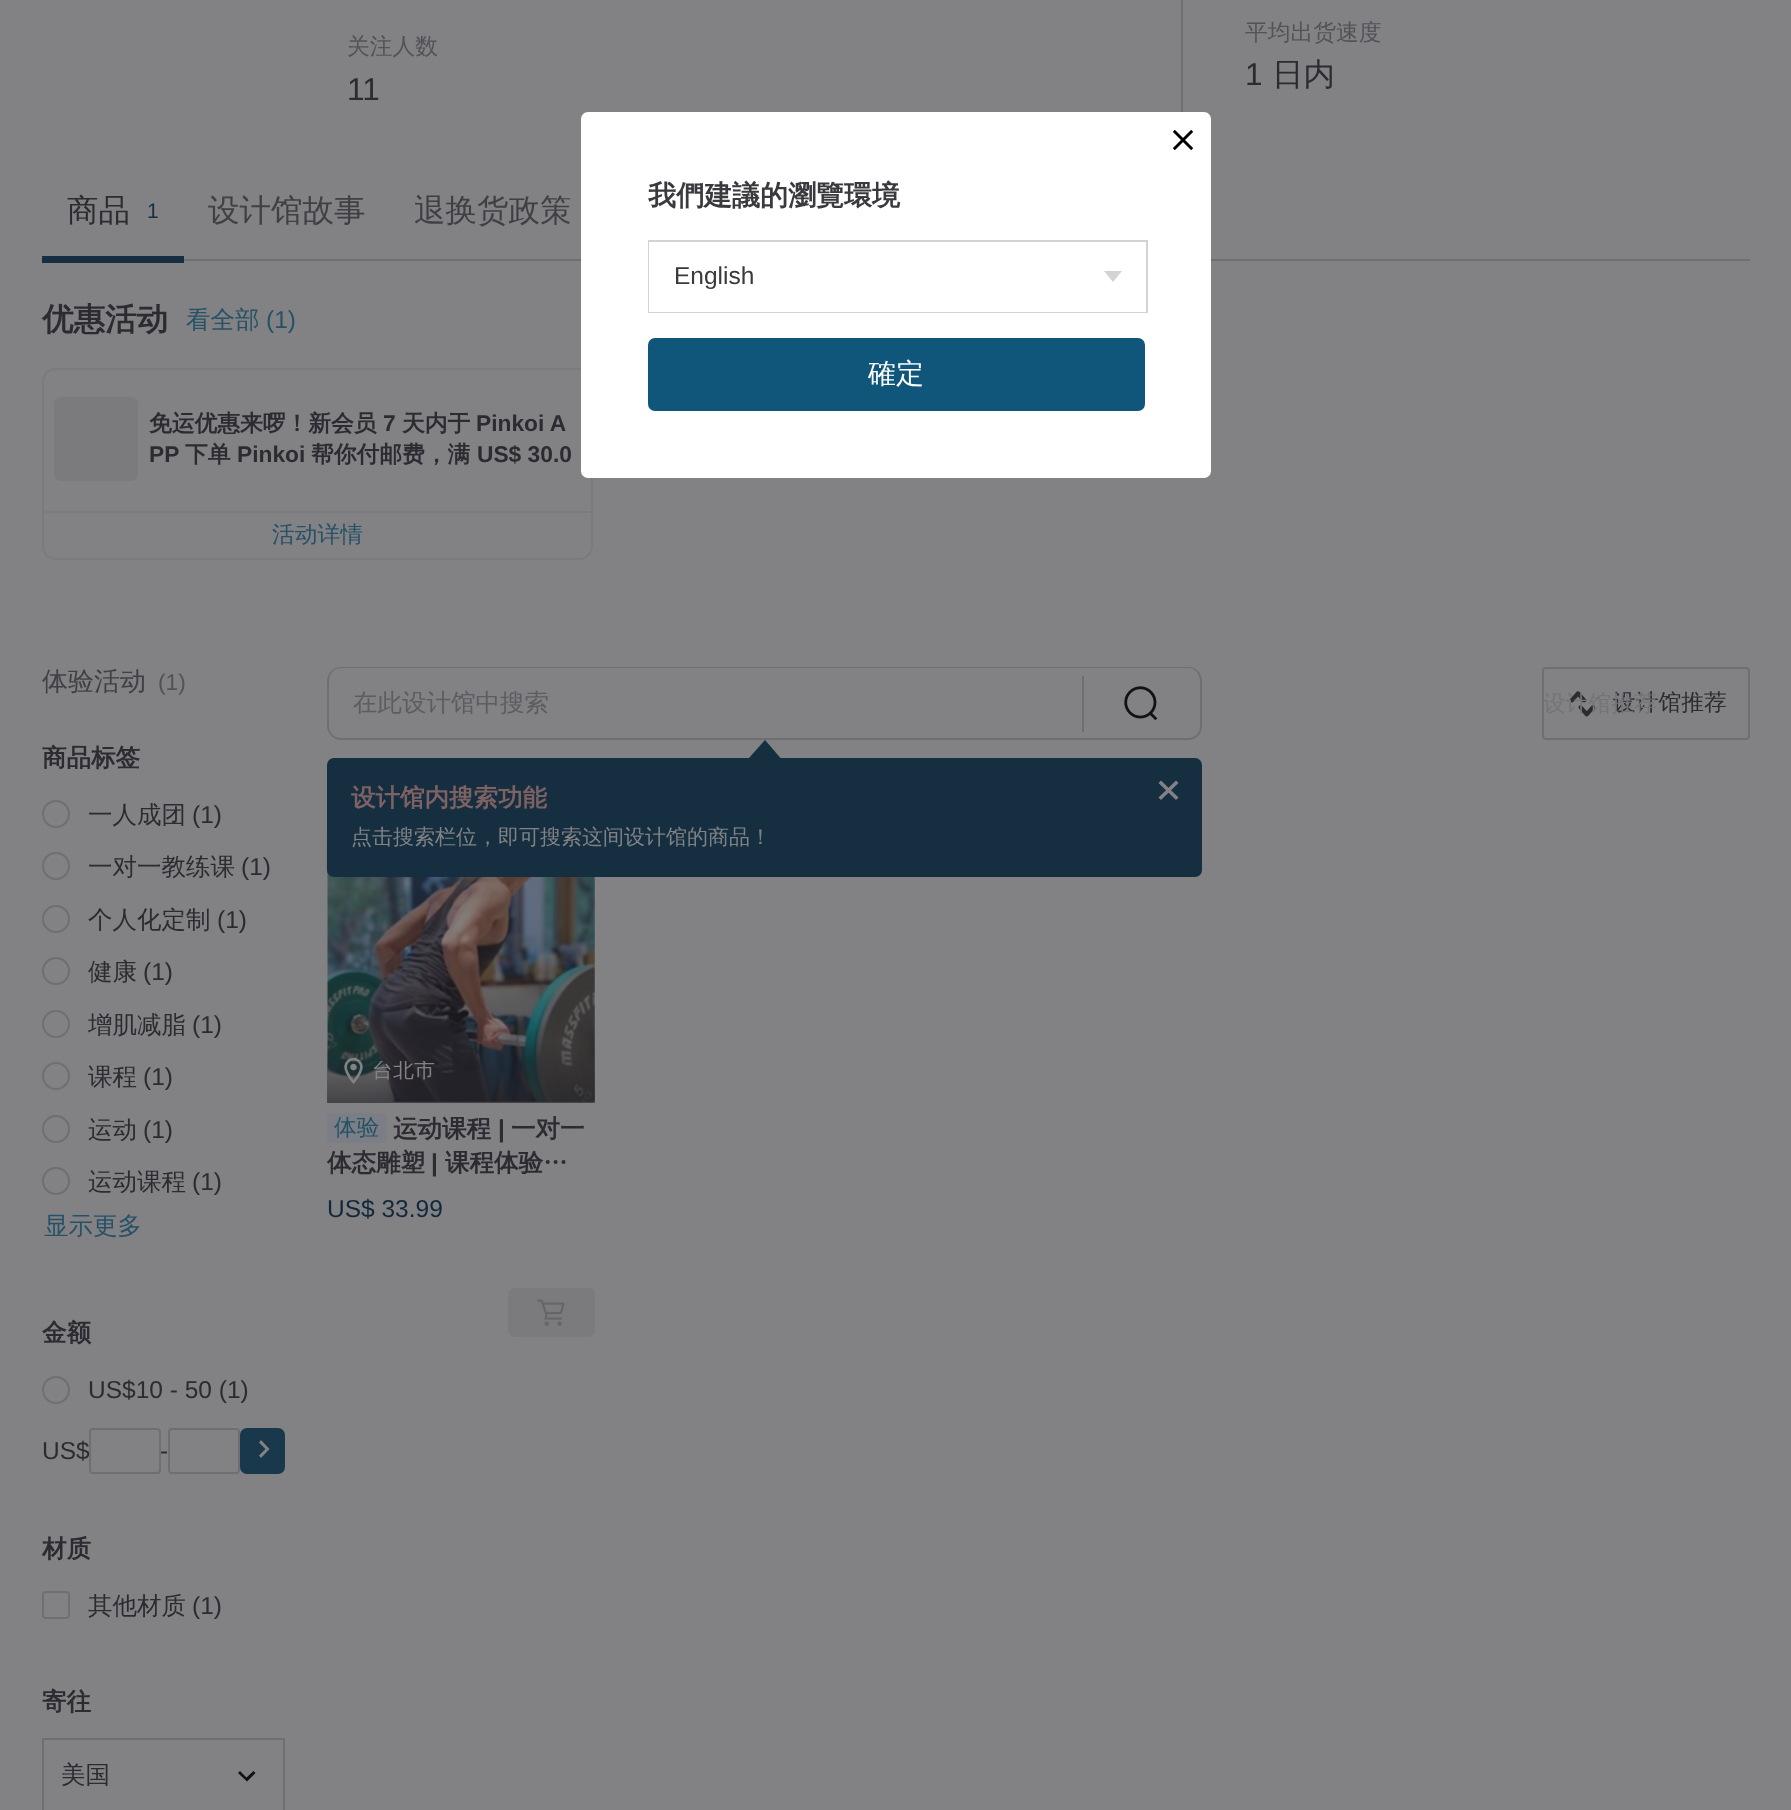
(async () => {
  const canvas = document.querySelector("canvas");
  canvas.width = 1791;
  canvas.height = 1810;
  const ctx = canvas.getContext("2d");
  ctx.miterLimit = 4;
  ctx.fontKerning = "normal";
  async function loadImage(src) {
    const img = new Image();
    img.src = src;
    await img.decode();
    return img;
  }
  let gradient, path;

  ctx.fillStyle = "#828285";
  ctx.fillRect(0, 0, 1791, 1810);
  for (const [x, y, w, h, color] of [
    [1181, 0, 2, 119, "#6f6f73"],
    [184, 259, 1566, 2, "#6f6f73"],
    [42, 256, 142, 7, "#152f40"],
  ]) {
    ctx.fillStyle = color;
    ctx.fillRect(x, y, w, h);
  }
  ctx.beginPath();
  ctx.roundRect(43, 369, 549, 190, 13);
  ctx.strokeStyle = "#7b7b7e";
  ctx.lineWidth = 2;
  ctx.stroke();
  ctx.fillStyle = "#7b7b7e";
  ctx.beginPath();
  ctx.roundRect(54, 397, 84, 84, 7);
  ctx.fill();
  ctx.fillRect(44, 511, 548, 2);
  ctx.beginPath();
  ctx.arc(56, 814, 13, 0, Math.PI * 2);
  ctx.strokeStyle = "#6f6f73";
  ctx.stroke();
  ctx.beginPath();
  ctx.arc(56, 866, 13, 0, Math.PI * 2);
  ctx.stroke();
  ctx.beginPath();
  ctx.arc(56, 919, 13, 0, Math.PI * 2);
  ctx.stroke();
  ctx.beginPath();
  ctx.arc(56, 971, 13, 0, Math.PI * 2);
  ctx.stroke();
  ctx.beginPath();
  ctx.arc(56, 1024, 13, 0, Math.PI * 2);
  ctx.stroke();
  ctx.beginPath();
  ctx.arc(56, 1076, 13, 0, Math.PI * 2);
  ctx.stroke();
  ctx.beginPath();
  ctx.arc(56, 1129, 13, 0, Math.PI * 2);
  ctx.stroke();
  ctx.beginPath();
  ctx.arc(56, 1181, 13, 0, Math.PI * 2);
  ctx.stroke();
  ctx.beginPath();
  ctx.arc(56, 1390, 13, 0, Math.PI * 2);
  ctx.stroke();
  ctx.beginPath();
  ctx.roundRect(169, 1429, 70, 44, 3);
  ctx.stroke();
  ctx.fillStyle = "#19384b";
  ctx.beginPath();
  ctx.roundRect(241, 1429, 43, 44, 6);
  ctx.fill();
  ctx.strokeStyle = "#19384b";
  ctx.stroke();
  ctx.fillStyle = "#828285";
  path = new Path2D("M259 1455.5L265.5 1449L259 1442.5L261 1440L269.5 1449L261 1458Z");
  ctx.fill(path);
  ctx.beginPath();
  ctx.roundRect(43, 1592, 26, 26, 3);
  ctx.strokeStyle = "#6f6f73";
  ctx.stroke();
  ctx.strokeRect(43, 1739, 241, 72);
  ctx.fillStyle = "#121215";
  path = new Path2D("M255.5 1773L247 1781.5L238 1773L240 1771L246.5 1777.5L253.5 1771Z");
  ctx.fill(path);
  ctx.fillStyle = "#6f6f73";
  path = new Path2D("M1083 667H1188C1196 667 1202 673 1202 681V726C1202 734 1196 740 1188 740H1083ZM1083 668H1188C1195 668 1200 674 1200 681V726C1200 733 1195 738 1188 738H1083Z");
  ctx.fill(path, "evenodd");
  ctx.drawImage(await loadImage("img/1.png"), 1124, 686, 34, 35);
  path = new Path2D("M341 667H1083V740H341C334 740 327 734 327 726V681C327 673 334 667 341 667ZM341 668H1083V738H341C334 738 329 733 329 726V681C329 674 334 668 341 668Z");
  ctx.fill(path, "evenodd");
  ctx.fillRect(1082, 676, 2, 56);
  ctx.fillStyle = "#7f7f82";
  ctx.beginPath();
  ctx.roundRect(327, 835, 268, 268, 4);
  ctx.fill();
  ctx.drawImage(await loadImage("img/3.png"), 327, 873, 268, 230);
  ctx.fillStyle = "rgba(32, 32, 38, 0.2)";
  ctx.filter = "blur(2px)";
  ctx.beginPath();
  ctx.roundRect(329, 837, 63, 38, 4);
  ctx.fill();
  ctx.filter = "none";
  ctx.fillStyle = "#5c5c61";
  ctx.fillRect(327, 870, 1, 3);
  ctx.fillStyle = "#152f40";
  ctx.beginPath();
  ctx.roundRect(327, 758, 875, 119, 7);
  ctx.fill();
  path = new Path2D("M780.5 758H749L765 740Z");
  ctx.fill(path);
  ctx.fillStyle = "#828285";
  path = new Path2D("M1161 780.5L1178.5 797.5L1176 800L1158.5 783Z");
  ctx.fill(path);
  path = new Path2D("M1158.5 797.5L1176 780.5L1178.5 783L1161 800Z");
  ctx.fill(path);
  ctx.beginPath();
  ctx.roundRect(1543, 668, 206, 71, 3);
  ctx.stroke();
  ctx.drawImage(await loadImage("img/2.png"), 1569, 691, 26, 26);
  gradient = ctx.createLinearGradient(461, 1040, 461, 1103);
  gradient.addColorStop(0, "rgba(32, 32, 38, 0)");
  gradient.addColorStop(1, "rgba(32, 32, 38, 0.6)");
  ctx.fillStyle = gradient;
  ctx.fillRect(327, 1044, 268, 59);
  ctx.drawImage(await loadImage("img/4.png"), 344, 1057, 19, 27);
  ctx.fillStyle = "#7b7f85";
  ctx.beginPath();
  ctx.roundRect(327, 1113, 60, 30, 4);
  ctx.fill();
  ctx.fillStyle = "#7b7b7e";
  ctx.beginPath();
  ctx.roundRect(508, 1288, 87, 49, 7);
  ctx.fill();
  ctx.drawImage(await loadImage("img/5.png"), 537, 1299, 28, 27);
  ctx.fillStyle = "#ffffff";
  ctx.beginPath();
  ctx.roundRect(581, 112, 630, 366, 7);
  ctx.fill();
  ctx.drawImage(await loadImage("img/6.png"), 1172, 129, 22, 22);
  ctx.strokeStyle = "#d3d3d5";
  ctx.strokeRect(649, 241, 498, 71);
  ctx.fillRect(649, 242, 497, 70);
  ctx.fillStyle = "#d3d3d5";
  path = new Path2D("M1104 271H1122L1113 282Z");
  ctx.fill(path, "evenodd");
  ctx.fillStyle = "#10567b";
  ctx.beginPath();
  ctx.roundRect(649, 339, 495, 71, 6);
  ctx.fill();
  ctx.strokeStyle = "#10567b";
  ctx.stroke();
  ctx.font = "500 22.75px WenQuanYi Zen Hei";
  ctx.fillStyle = "#525257";
  ctx.fillText("关注人数", 347, 54);
  ctx.font = "31.5px Liberation Sans";
  ctx.fillStyle = "#2b2b31";
  ctx.fillText("11", 347, 100);
  ctx.font = "500 22.75px WenQuanYi Zen Hei";
  ctx.fillStyle = "#525257";
  ctx.fillText("平均出货速度", 1245, 40);
  ctx.font = "31.5px Liberation Sans";
  ctx.fillStyle = "#2b2b31";
  ctx.fillText("1", 1245, 85);
  ctx.font = "500 31.5px WenQuanYi Zen Hei";
  ctx.fillText("日内", 1272, 85);
  ctx.fillText("商品", 67, 221);
  ctx.font = "21px Liberation Sans";
  ctx.fillStyle = "#152f40";
  ctx.fillText("1", 147, 218);
  ctx.font = "500 31.5px WenQuanYi Zen Hei";
  ctx.fillStyle = "#3f3f44";
  ctx.fillText("设计馆故事", 208, 221);
  ctx.fillText("退换货政策", 414, 221);
  ctx.font = "bold 31.5px WenQuanYi Zen Hei";
  ctx.fillStyle = "#2b2b31";
  ctx.fillText("优惠活动", 42, 330);
  ctx.font = "500 24.5px WenQuanYi Zen Hei";
  ctx.fillStyle = "#265166";
  ctx.fillText("看全部", 186, 328);
  ctx.font = "24.5px Liberation Sans";
  ctx.fillText("(1)", 266, 328);
  ctx.font = "bold 22.75px WenQuanYi Zen Hei";
  ctx.fillStyle = "#2b2b31";
  ctx.fillText("免运优惠来啰！新会员", 149, 431);
  ctx.font = "bold 22.75px Liberation Sans";
  ctx.fillText("7", 383, 431);
  ctx.font = "bold 22.75px WenQuanYi Zen Hei";
  ctx.fillText("天内于", 402, 431);
  ctx.font = "bold 22.75px Liberation Sans";
  ctx.fillText("Pinkoi A", 476, 431);
  ctx.fillText("PP", 149, 462);
  ctx.font = "bold 22.75px WenQuanYi Zen Hei";
  ctx.fillText("下单", 185, 462);
  ctx.font = "bold 22.75px Liberation Sans";
  ctx.fillText("Pinkoi", 237, 462);
  ctx.font = "bold 22.75px WenQuanYi Zen Hei";
  ctx.fillText("帮你付邮费，满", 311, 462);
  ctx.font = "bold 22.75px Liberation Sans";
  ctx.fillText("US$ 30.0", 477, 462);
  ctx.font = "500 22.75px WenQuanYi Zen Hei";
  ctx.fillStyle = "#265166";
  ctx.fillText("活动详情", 272, 542);
  ctx.font = "500 26px WenQuanYi Zen Hei";
  ctx.fillStyle = "#3f3f44";
  ctx.fillText("体验活动", 42, 690);
  ctx.font = "22.75px Liberation Sans";
  ctx.fillStyle = "#525257";
  ctx.fillText("(1)", 158, 690);
  ctx.font = "bold 24.5px WenQuanYi Zen Hei";
  ctx.fillStyle = "#2b2b31";
  ctx.fillText("商品标签", 42, 766);
  ctx.font = "500 24.5px WenQuanYi Zen Hei";
  ctx.fillText("一人成团", 88, 823);
  ctx.font = "24.5px Liberation Sans";
  ctx.fillText("(1)", 192, 823);
  ctx.font = "500 24.5px WenQuanYi Zen Hei";
  ctx.fillText("一对一教练课", 88, 875);
  ctx.font = "24.5px Liberation Sans";
  ctx.fillText("(1)", 241, 875);
  ctx.font = "500 24.5px WenQuanYi Zen Hei";
  ctx.fillText("个人化定制", 88, 928);
  ctx.font = "24.5px Liberation Sans";
  ctx.fillText("(1)", 217, 928);
  ctx.font = "500 24.5px WenQuanYi Zen Hei";
  ctx.fillText("健康", 88, 980);
  ctx.font = "24.5px Liberation Sans";
  ctx.fillText("(1)", 143, 980);
  ctx.font = "500 24.5px WenQuanYi Zen Hei";
  ctx.fillText("增肌减脂", 88, 1033);
  ctx.font = "24.5px Liberation Sans";
  ctx.fillText("(1)", 192, 1033);
  ctx.font = "500 24.5px WenQuanYi Zen Hei";
  ctx.fillText("课程", 88, 1085);
  ctx.font = "24.5px Liberation Sans";
  ctx.fillText("(1)", 143, 1085);
  ctx.font = "500 24.5px WenQuanYi Zen Hei";
  ctx.fillText("运动", 88, 1138);
  ctx.font = "24.5px Liberation Sans";
  ctx.fillText("(1)", 143, 1138);
  ctx.font = "500 24.5px WenQuanYi Zen Hei";
  ctx.fillText("运动课程", 88, 1190);
  ctx.font = "24.5px Liberation Sans";
  ctx.fillText("(1)", 192, 1190);
  ctx.font = "500 24.5px WenQuanYi Zen Hei";
  ctx.fillStyle = "#265166";
  ctx.fillText("显示更多", 44, 1234);
  ctx.font = "bold 24.5px WenQuanYi Zen Hei";
  ctx.fillStyle = "#2b2b31";
  ctx.fillText("金额", 42, 1341);
  ctx.font = "24.5px Liberation Sans";
  ctx.fillText("US$10 - 50 (1)", 88, 1398);
  ctx.fillText("US$", 42, 1459);
  ctx.fillStyle = "#828285";
  ctx.fillRect(89, 1453, 1, 3);
  ctx.beginPath();
  ctx.roundRect(90, 1429, 70, 44, 3);
  ctx.strokeStyle = "#6f6f73";
  ctx.stroke();
  ctx.fillStyle = "#2b2b31";
  ctx.fillText("-", 160, 1459);
  ctx.font = "bold 24.5px WenQuanYi Zen Hei";
  ctx.fillText("材质", 42, 1557);
  ctx.font = "500 24.5px WenQuanYi Zen Hei";
  ctx.fillText("其他材质", 88, 1614);
  ctx.font = "24.5px Liberation Sans";
  ctx.fillText("(1)", 192, 1614);
  ctx.font = "bold 24.5px WenQuanYi Zen Hei";
  ctx.fillText("寄往", 42, 1710);
  ctx.font = "500 24.5px WenQuanYi Zen Hei";
  ctx.fillText("美国", 61, 1783);
  ctx.fillStyle = "#5c5c61";
  ctx.fillText("在此设计馆中搜索", 353, 711);
  ctx.font = "bold 24.5px WenQuanYi Zen Hei";
  ctx.fillStyle = "#7e6162";
  ctx.fillText("设计馆内搜索功能", 351, 806);
  ctx.font = "500 21px WenQuanYi Zen Hei";
  ctx.fillStyle = "#828285";
  ctx.fillText("点击搜索栏位，即可搜索这间设计馆的商品！", 351, 844);
  ctx.font = "500 22.75px WenQuanYi Zen Hei";
  ctx.fillStyle = "#2b2b31";
  ctx.fillText("设计馆推荐", 1613, 710);
  ctx.fillStyle = "#747477";
  ctx.fillText("设计馆推荐", 1543, 711);
  ctx.save();
  ctx.beginPath();
  ctx.rect(373, 1061, 63, 21);
  ctx.clip();
  ctx.font = "500 21px WenQuanYi Zen Hei";
  ctx.fillStyle = "#828285";
  ctx.fillText("台北市", 372, 1077);
  ctx.restore();
  ctx.fillStyle = "#265166";
  ctx.fillText("体验", 334, 1135);
  ctx.font = "bold 24.5px WenQuanYi Zen Hei";
  ctx.fillStyle = "#2b2b31";
  ctx.fillText("运动课程", 393, 1137);
  ctx.font = "bold 24.5px Liberation Sans";
  ctx.fillText("|", 498, 1137);
  ctx.font = "bold 24.5px WenQuanYi Zen Hei";
  ctx.fillText("一对一", 511, 1137);
  ctx.fillText("体态雕塑", 327, 1171);
  ctx.font = "bold 24.5px Liberation Sans";
  ctx.fillText("|", 431, 1171);
  ctx.font = "bold 24.5px WenQuanYi Zen Hei";
  ctx.fillText("课程体验…", 445, 1171);
  ctx.font = "24.5px Liberation Sans";
  ctx.fillStyle = "#12283a";
  ctx.fillText("US$ 33.99", 327, 1217);
  ctx.font = "bold 28px WenQuanYi Zen Hei";
  ctx.fillStyle = "#39393e";
  ctx.fillText("我們建議的瀏覽環境", 648, 205);
  ctx.font = "24.5px Liberation Sans";
  ctx.fillText("English", 674, 284);
  ctx.font = "500 28px WenQuanYi Zen Hei";
  ctx.fillStyle = "#ffffff";
  ctx.fillText("確定", 868, 383);
})();
